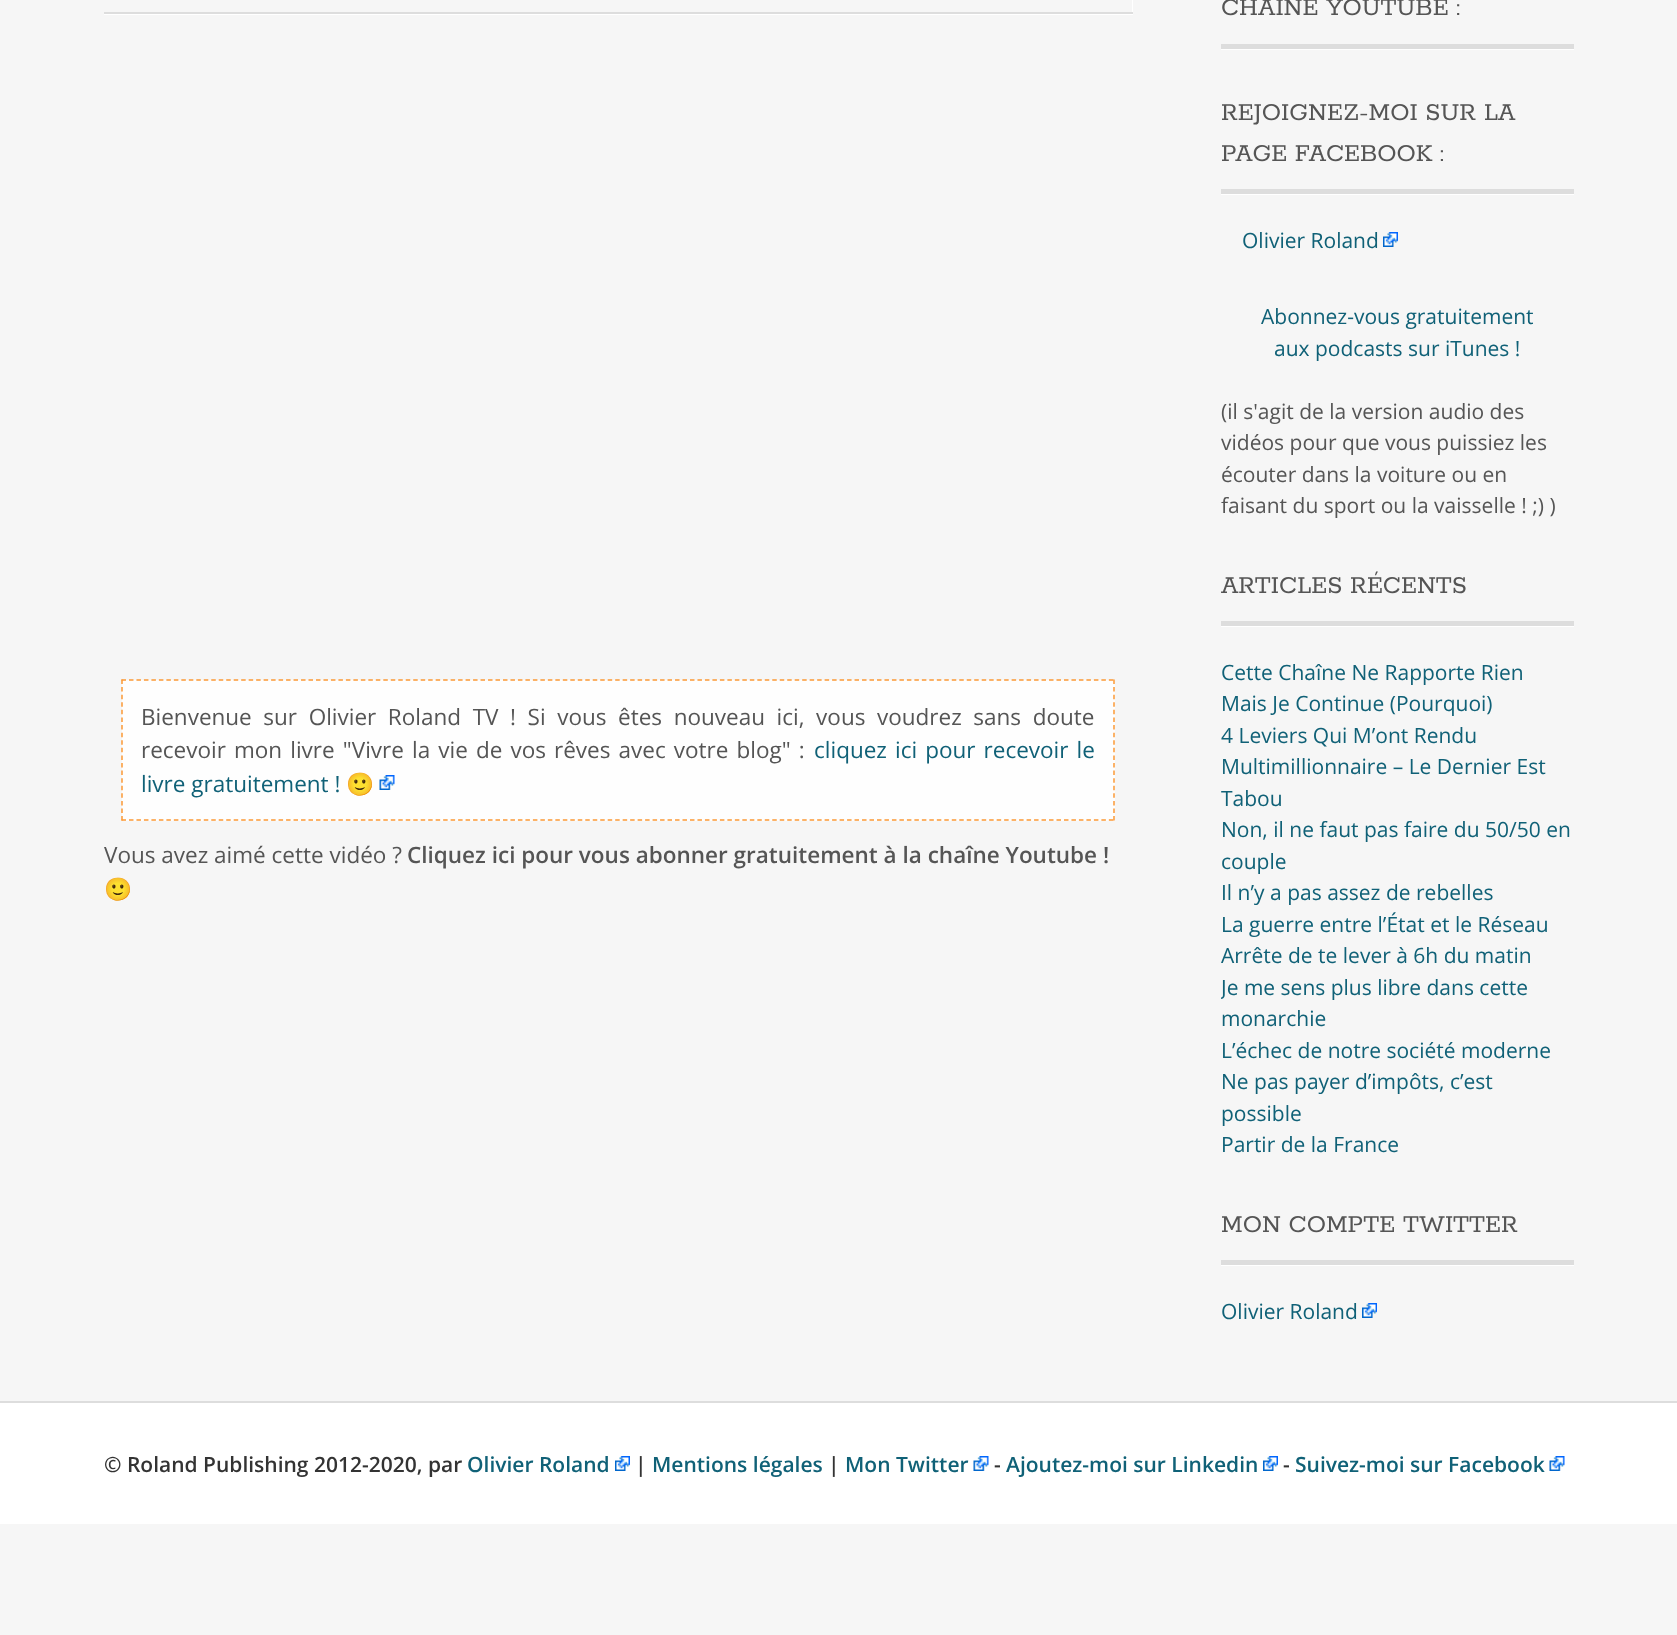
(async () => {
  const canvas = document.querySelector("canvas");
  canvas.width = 1677;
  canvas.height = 1635;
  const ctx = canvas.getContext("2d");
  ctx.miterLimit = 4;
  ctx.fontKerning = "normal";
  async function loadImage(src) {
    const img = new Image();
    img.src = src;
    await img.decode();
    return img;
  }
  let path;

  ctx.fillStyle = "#f6f6f6";
  ctx.fillRect(0, 0, 1677, 1635);
  ctx.fillStyle = "#ffffff";
  path = new Path2D("M104 14V15H1133V-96H1132V14Z");
  ctx.fill(path);
  ctx.fillStyle = "#dddddd";
  ctx.fillRect(104, 12, 1029, 2);
  ctx.fillStyle = "#fefefe";
  ctx.fillRect(122, 680, 993, 141);
  path = new Path2D("M121.5 680H1114.5");
  ctx.strokeStyle = "#fb9936";
  ctx.lineWidth = 1.5;
  ctx.setLineDash([4.5, 2.98]);
  ctx.stroke(path);
  path = new Path2D("M1114 679.5V820.5");
  ctx.setLineDash([4.5, 3.09]);
  ctx.stroke(path);
  path = new Path2D("M121.5 820H1114.5");
  ctx.setLineDash([4.5, 2.98]);
  ctx.stroke(path);
  path = new Path2D("M122 679.5V820.5");
  ctx.setLineDash([4.5, 3.09]);
  ctx.stroke(path);
  ctx.drawImage(await loadImage("img/1.png"), 379, 775, 16, 15);
  ctx.fillStyle = "#ffffff";
  path = new Path2D("M1221 48V50H1574V-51V48Z");
  ctx.fill(path);
  ctx.fillStyle = "#dddddd";
  ctx.fillRect(1221, 44, 353, 5);
  ctx.fillStyle = "#ffffff";
  path = new Path2D("M1221 194V195H1574V95V194Z");
  ctx.fill(path);
  ctx.fillStyle = "#dddddd";
  ctx.fillRect(1221, 189, 353, 5);
  ctx.drawImage(await loadImage("img/2.png"), 1383, 232, 15, 15);
  ctx.fillStyle = "#ffffff";
  path = new Path2D("M1221 626V627H1574V567V626Z");
  ctx.fill(path);
  ctx.fillStyle = "#dddddd";
  ctx.fillRect(1221, 621, 353, 5);
  ctx.fillStyle = "#ffffff";
  path = new Path2D("M1221 1264V1266H1574V1206V1264Z");
  ctx.fill(path);
  ctx.fillStyle = "#dddddd";
  ctx.fillRect(1221, 1260, 353, 5);
  ctx.drawImage(await loadImage("img/3.png"), 1362, 1303, 15, 15);
  ctx.fillStyle = "#ffffff";
  ctx.fillRect(0, 1403, 1677, 121);
  ctx.fillStyle = "#dddddd";
  ctx.fillRect(0, 1401, 1677, 2);
  ctx.drawImage(await loadImage("img/4.png"), 615, 1456, 15, 15);
  ctx.drawImage(await loadImage("img/5.png"), 973, 1456, 16, 15);
  ctx.drawImage(await loadImage("img/6.png"), 1263, 1456, 15, 15);
  ctx.drawImage(await loadImage("img/5.png"), 1549, 1456, 16, 15);
  ctx.wordSpacing = "5.75px";
  ctx.font = "22.5px Open Sans";
  ctx.fillStyle = "#555555";
  ctx.fillText("Bienvenue sur Olivier Roland TV", 141, 725);
  ctx.fillText("! Si vous êtes nouveau ici, vous voudrez sans doute", 510, 725);
  ctx.wordSpacing = "2.25px";
  ctx.fillText("recevoir mon livre \"Vivre la vie de vos rêves avec votre blog\" :", 141, 758);
  ctx.fillStyle = "#106177";
  ctx.fillText("cliquez ici pour recevoir le", 814, 758);
  ctx.wordSpacing = "0px";
  ctx.fillText("livre gratuitement !", 141, 792);
  ctx.font = "22.5px Noto Color Emoji";
  ctx.fillText("🙂", 346, 792);
  ctx.font = "22.5px Open Sans";
  ctx.fillStyle = "#555555";
  ctx.fillText("Vous avez aimé cette vidéo ?", 104, 863);
  ctx.font = "600 22.5px Open Sans";
  ctx.fillText("Cliquez ici pour vous abonner gratuitement à la chaîne Youtube !", 407, 863);
  ctx.font = "22.5px Noto Color Emoji";
  ctx.fillText("🙂", 104, 897);
  ctx.font = "27px Rokkitt";
  for (const [text, x, y] of [
    ["CHAÎNE YOUTUBE :", 1221, 15],
    ["REJOIGNEZ-MOI SUR LA", 1221, 120],
    ["PAGE FACEBOOK :", 1221, 161],
  ]) {
    ctx.fillText(text, x, y);
  }
  ctx.font = "21px Open Sans";
  ctx.fillStyle = "#106177";
  for (const [text, x, y] of [
    ["Olivier Roland", 1242, 248],
    ["Abonnez-vous gratuitement", 1261, 324],
    ["aux podcasts sur iTunes !", 1274, 356],
  ]) {
    ctx.fillText(text, x, y);
  }
  ctx.fillStyle = "#555555";
  for (const [text, x, y] of [
    ["(il s'agit de la version audio des", 1221, 419],
    ["vidéos pour que vous puissiez les", 1221, 450],
    ["écouter dans la voiture ou en", 1221, 482],
    ["faisant du sport ou la vaisselle ! ;) )", 1221, 513],
  ]) {
    ctx.fillText(text, x, y);
  }
  ctx.font = "27px Rokkitt";
  ctx.fillText("ARTICLES RÉCENTS", 1221, 593);
  ctx.font = "21px Open Sans";
  ctx.fillStyle = "#106177";
  for (const [text, x, y] of [
    ["Cette Chaîne Ne Rapporte Rien", 1221, 680],
    ["Mais Je Continue (Pourquoi)", 1221, 711],
    ["4 Leviers Qui M’ont Rendu", 1221, 743],
    ["Multimillionnaire – Le Dernier Est", 1221, 774],
    ["Tabou", 1221, 806],
    ["Non, il ne faut pas faire du 50/50 en", 1221, 837],
    ["couple", 1221, 869],
    ["Il n’y a pas assez de rebelles", 1221, 900],
    ["La guerre entre l’État et le Réseau", 1221, 932],
    ["Arrête de te lever à 6h du matin", 1221, 963],
  ]) {
    ctx.fillText(text, x, y);
  }
  ctx.save();
  ctx.beginPath();
  ctx.rect(1221, 0, 353, 1371);
  ctx.clip();
  ctx.fillText("Je me sens plus libre dans cette", 1221, 995);
  ctx.restore();
  for (const [text, x, y] of [
    ["monarchie", 1221, 1026],
    ["L’échec de notre société moderne", 1221, 1058],
    ["Ne pas payer d’impôts, c’est", 1221, 1089],
    ["possible", 1221, 1121],
    ["Partir de la France", 1221, 1152],
  ]) {
    ctx.fillText(text, x, y);
  }
  ctx.font = "27px Rokkitt";
  ctx.fillStyle = "#555555";
  ctx.fillText("MON COMPTE TWITTER", 1221, 1232);
  ctx.font = "21px Open Sans";
  ctx.fillStyle = "#106177";
  ctx.fillText("Olivier Roland", 1221, 1319);
  ctx.font = "600 21px Open Sans";
  ctx.fillStyle = "#333333";
  ctx.fillText("© Roland Publishing 2012-2020, par", 104, 1472);
  ctx.fillStyle = "#106177";
  ctx.fillText("Olivier Roland", 467, 1472);
  ctx.fillStyle = "#333333";
  ctx.fillText("|", 635, 1472);
  ctx.fillStyle = "#106177";
  ctx.fillText("Mentions légales", 652, 1472);
  ctx.fillStyle = "#333333";
  ctx.fillText("|", 828, 1472);
  ctx.fillStyle = "#106177";
  ctx.fillText("Mon Twitter", 845, 1472);
  ctx.fillStyle = "#333333";
  ctx.fillText("-", 994, 1472);
  ctx.fillStyle = "#106177";
  ctx.fillText("Ajoutez-moi sur Linkedin", 1006, 1472);
  ctx.fillStyle = "#333333";
  ctx.fillText("-", 1283, 1472);
  ctx.fillStyle = "#106177";
  ctx.fillText("Suivez-moi sur Facebook", 1295, 1472);
})();
